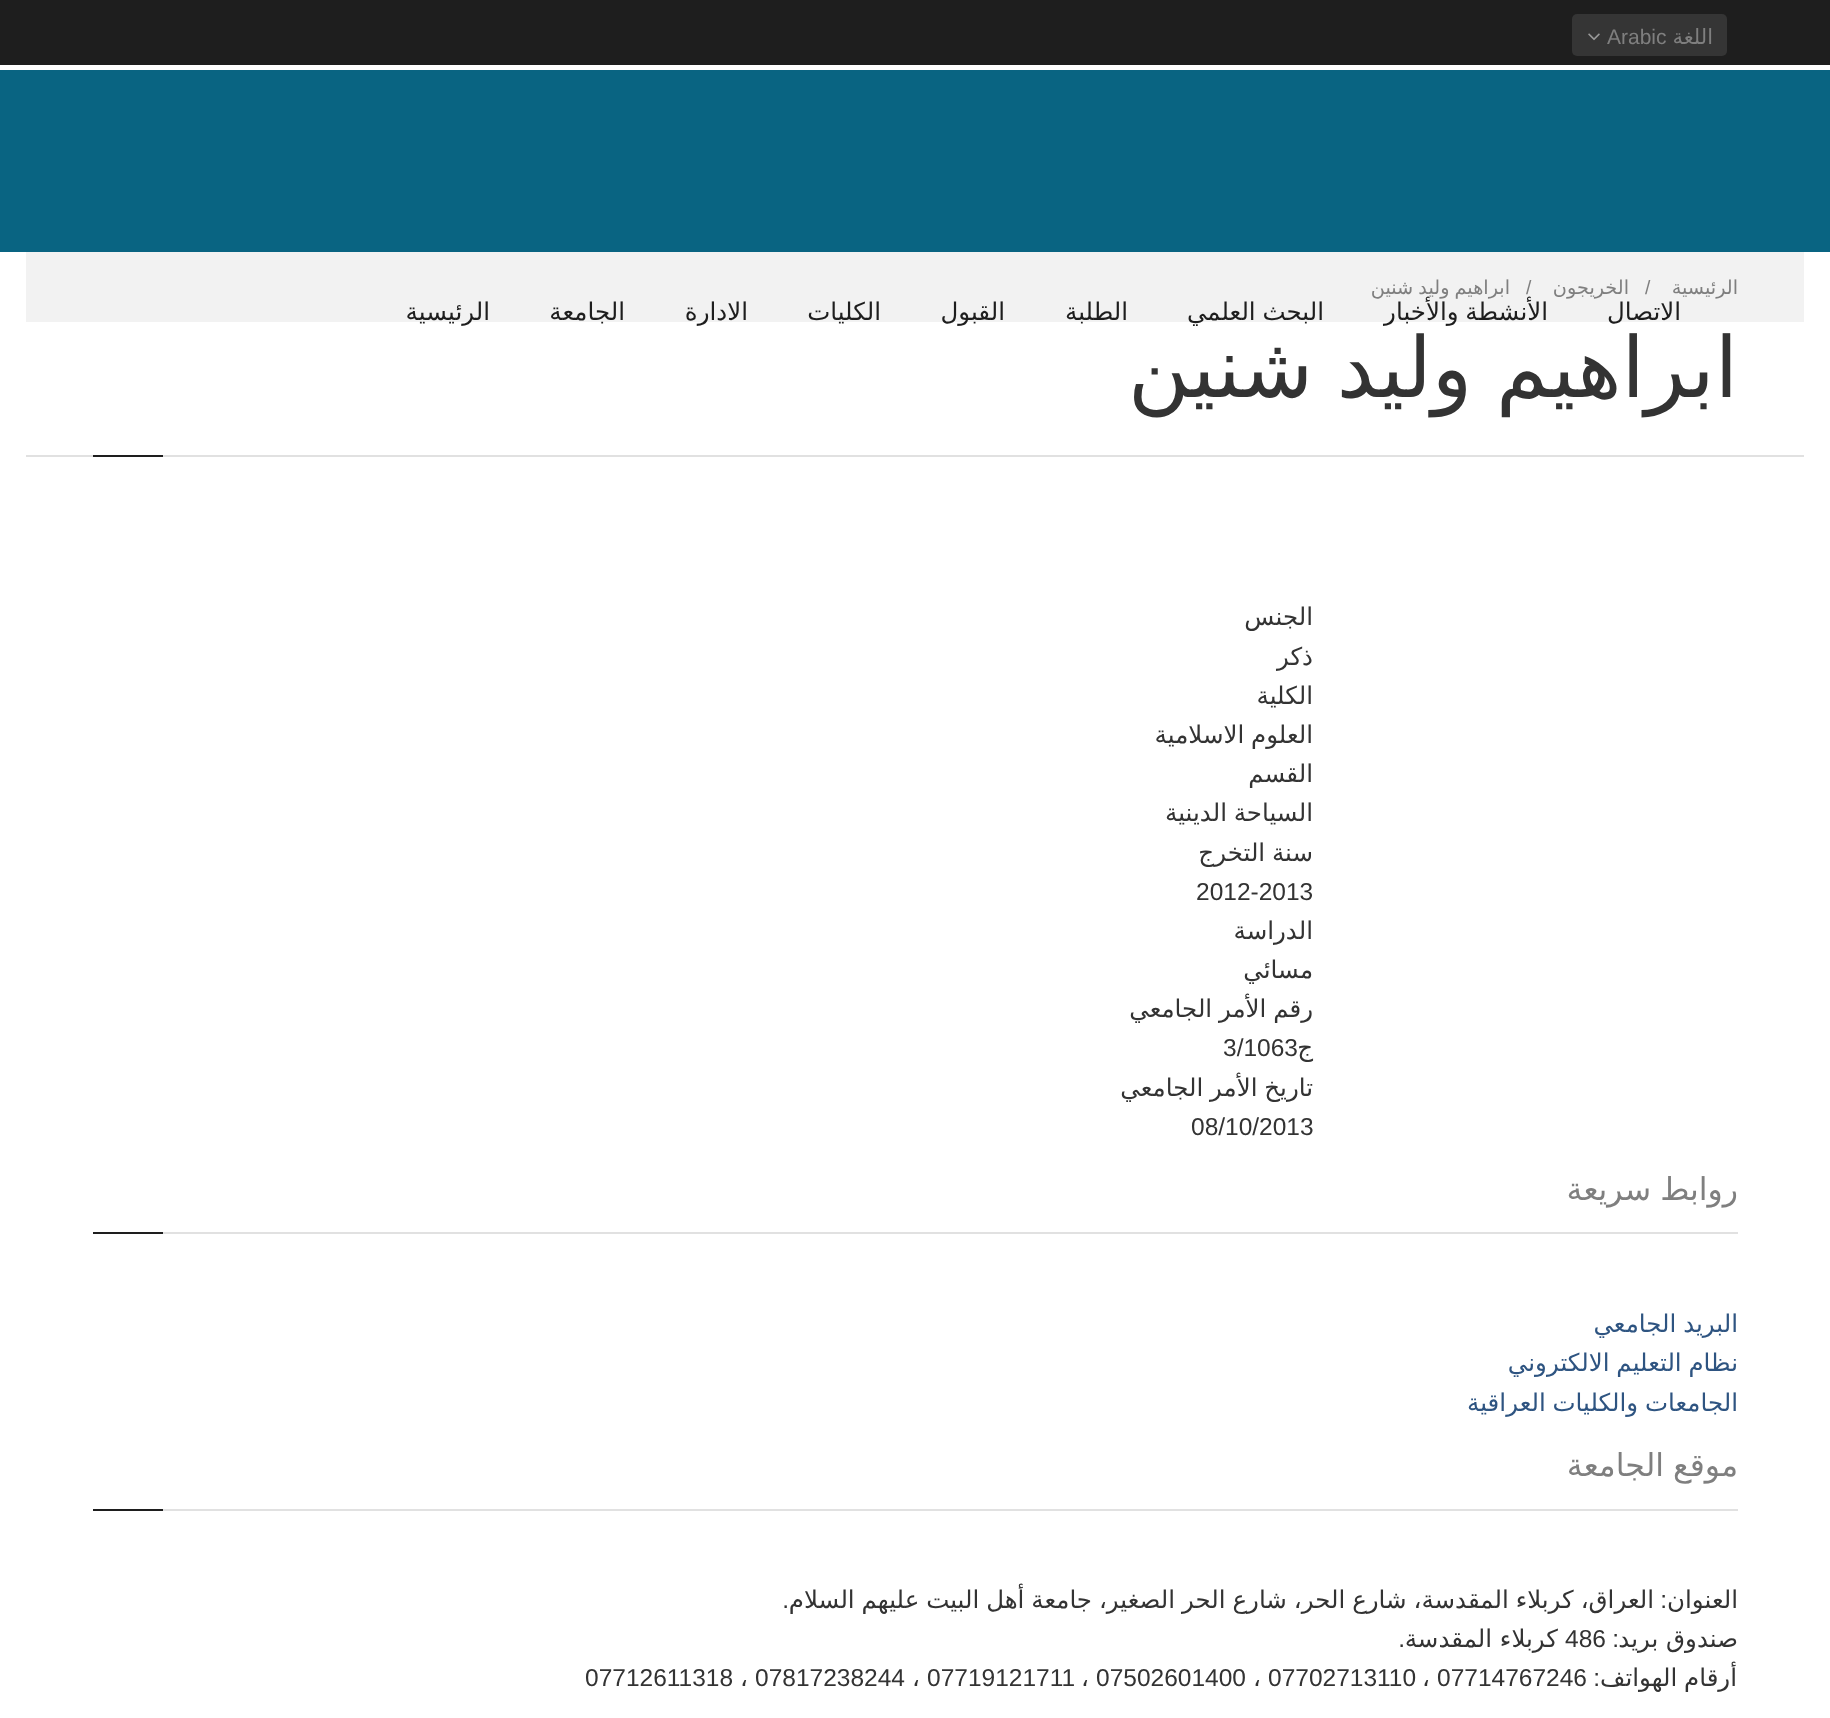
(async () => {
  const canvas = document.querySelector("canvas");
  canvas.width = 1830;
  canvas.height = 1718;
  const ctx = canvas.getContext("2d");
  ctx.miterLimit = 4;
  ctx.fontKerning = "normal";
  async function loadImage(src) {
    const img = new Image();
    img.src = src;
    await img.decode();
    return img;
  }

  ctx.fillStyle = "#ffffff";
  ctx.fillRect(0, 0, 1830, 1718);
  ctx.fillStyle = "#1e1e1e";
  ctx.fillRect(0, 0, 1830, 65);
  ctx.fillStyle = "#353535";
  ctx.beginPath();
  ctx.roundRect(1572, 14, 155, 42, 5);
  ctx.fill();
  ctx.drawImage(await loadImage("img/1.png"), 1588, 33, 12, 8);
  for (const [x, y, w, h, color] of [
    [0, 70, 1830, 182, "#096482"],
    [26, 252, 1778, 70, "#f2f2f2"],
    [26, 455, 1778, 2, "#e1e1e1"],
    [93, 455, 70, 2, "#1e1e1e"],
    [163, 1232, 1575, 2, "#e1e1e1"],
    [93, 1232, 70, 2, "#1e1e1e"],
    [163, 1509, 1575, 2, "#e1e1e1"],
    [93, 1509, 70, 2, "#1e1e1e"],
  ]) {
    ctx.fillStyle = color;
    ctx.fillRect(x, y, w, h);
  }
  ctx.direction = "rtl";
  ctx.font = "21px DejaVu Sans";
  ctx.fillStyle = "#7f7f7f";
  ctx.fillText("اللغة", 1713, 44);
  ctx.direction = "ltr";
  ctx.font = "21px Liberation Sans";
  ctx.fillText("Arabic", 1607, 44);
  ctx.direction = "rtl";
  ctx.font = "24.5px DejaVu Sans";
  ctx.fillStyle = "#1e1e1e";
  ctx.fillText("الاتصال", 1681, 320);
  ctx.wordSpacing = "-1px";
  ctx.fillText("الأنشطة والأخبار", 1548, 320);
  ctx.fillText("البحث العلمي", 1324, 320);
  ctx.wordSpacing = "0px";
  for (const [text, x, y] of [
    ["الطلبة", 1128, 320],
    ["القبول", 1005, 320],
    ["الكليات", 881, 320],
    ["الادارة", 748, 320],
    ["الجامعة", 625, 320],
    ["الرئيسية", 490, 320],
  ]) {
    ctx.fillText(text, x, y);
  }
  ctx.font = "19.25px DejaVu Sans";
  ctx.fillStyle = "#7f7f7f";
  ctx.fillText("الرئيسية", 1738, 294);
  ctx.direction = "ltr";
  ctx.font = "19.25px Liberation Sans";
  ctx.fillText("/", 1645, 294);
  ctx.direction = "rtl";
  ctx.font = "19.25px DejaVu Sans";
  ctx.fillText("الخريجون", 1629, 294);
  ctx.direction = "ltr";
  ctx.font = "19.25px Liberation Sans";
  ctx.fillText("/", 1526, 294);
  ctx.wordSpacing = "-1px";
  ctx.direction = "rtl";
  ctx.font = "19.25px DejaVu Sans";
  ctx.fillText("ابراهيم وليد شنين", 1510, 294);
  ctx.wordSpacing = "-3px";
  ctx.font = "84px DejaVu Sans";
  ctx.fillStyle = "#333333";
  ctx.fillText("ابراهيم وليد شنين", 1738, 397);
  ctx.wordSpacing = "0px";
  ctx.font = "24.5px DejaVu Sans";
  for (const [text, x, y] of [
    ["الجنس", 1313, 625],
    ["ذكر", 1313, 665],
    ["الكلية", 1313, 704],
  ]) {
    ctx.fillText(text, x, y);
  }
  ctx.wordSpacing = "-1px";
  ctx.fillText("العلوم الاسلامية", 1313, 743);
  ctx.wordSpacing = "0px";
  ctx.fillText("القسم", 1313, 782);
  ctx.wordSpacing = "-1px";
  ctx.fillText("السياحة الدينية", 1313, 821);
  ctx.fillText("سنة التخرج", 1313, 861);
  ctx.wordSpacing = "0px";
  ctx.direction = "ltr";
  ctx.font = "24.5px Liberation Sans";
  ctx.fillText("2012-2013", 1196, 900);
  ctx.direction = "rtl";
  ctx.font = "24.5px DejaVu Sans";
  ctx.fillText("الدراسة", 1313, 939);
  ctx.fillText("مسائي", 1313, 978);
  ctx.wordSpacing = "-1px";
  ctx.fillText("رقم الأمر الجامعي", 1313, 1017);
  ctx.wordSpacing = "0px";
  ctx.fillText("ج", 1313, 1056);
  ctx.direction = "ltr";
  ctx.font = "24.5px Liberation Sans";
  ctx.fillText("3/1063", 1223, 1056);
  ctx.wordSpacing = "-1px";
  ctx.direction = "rtl";
  ctx.font = "24.5px DejaVu Sans";
  ctx.fillText("تاريخ الأمر الجامعي", 1313, 1096);
  ctx.wordSpacing = "0px";
  ctx.direction = "ltr";
  ctx.font = "24.5px Liberation Sans";
  ctx.fillText("08/10/2013", 1191, 1135);
  ctx.wordSpacing = "-1px";
  ctx.direction = "rtl";
  ctx.font = "31.5px DejaVu Sans";
  ctx.fillStyle = "#7f7f7f";
  ctx.fillText("روابط سريعة", 1738, 1200);
  ctx.font = "24.5px DejaVu Sans";
  ctx.fillStyle = "#2e5481";
  for (const [text, x, y] of [
    ["البريد الجامعي", 1738, 1332],
    ["نظام التعليم الالكتروني", 1738, 1371],
    ["الجامعات والكليات العراقية", 1738, 1411],
  ]) {
    ctx.fillText(text, x, y);
  }
  ctx.font = "31.5px DejaVu Sans";
  ctx.fillStyle = "#7f7f7f";
  ctx.fillText("موقع الجامعة", 1738, 1476);
  ctx.wordSpacing = "0px";
  ctx.font = "24.5px DejaVu Sans";
  ctx.fillStyle = "#333333";
  ctx.fillText("العنوان", 1738, 1608);
  ctx.wordSpacing = "-0.9px";
  ctx.fillText("العراق، كربلاء المقدسة، شارع الحر، شارع الحر الصغير، جامعة أهل البيت عليهم السلام", 1654, 1608);
  ctx.wordSpacing = "0px";
  ctx.font = "24.5px Liberation Sans";
  ctx.fillText(":", 1667, 1608);
  ctx.fillText(".", 789, 1608);
  ctx.font = "24.5px DejaVu Sans";
  ctx.fillText("صندوق بريد", 1738, 1647);
  ctx.font = "24.5px Liberation Sans";
  ctx.fillText(":", 1619, 1647);
  ctx.direction = "ltr";
  ctx.fillText("486", 1565, 1647);
  ctx.direction = "rtl";
  ctx.font = "24.5px DejaVu Sans";
  ctx.fillText("كربلاء المقدسة", 1558, 1647);
  ctx.font = "24.5px Liberation Sans";
  ctx.fillText(".", 1405, 1647);
  ctx.wordSpacing = "-1px";
  ctx.font = "24.5px DejaVu Sans";
  ctx.fillText("أرقام الهواتف", 1737, 1686);
  ctx.wordSpacing = "0px";
  ctx.font = "24.5px Liberation Sans";
  ctx.fillText(":", 1600, 1686);
  ctx.direction = "ltr";
  ctx.fillText("07714767246", 1437, 1686);
  ctx.font = "24.5px DejaVu Sans";
  ctx.fillText("،", 1422, 1686);
  ctx.font = "24.5px Liberation Sans";
  ctx.fillText("07702713110", 1268, 1686);
  ctx.font = "24.5px DejaVu Sans";
  ctx.fillText("،", 1253, 1686);
  ctx.font = "24.5px Liberation Sans";
  ctx.fillText("07502601400", 1096, 1686);
  ctx.font = "24.5px DejaVu Sans";
  ctx.fillText("،", 1081, 1686);
  ctx.font = "24.5px Liberation Sans";
  ctx.fillText("07719121711", 927, 1686);
  ctx.font = "24.5px DejaVu Sans";
  ctx.fillText("،", 912, 1686);
  ctx.font = "24.5px Liberation Sans";
  ctx.fillText("07817238244", 755, 1686);
  ctx.font = "24.5px DejaVu Sans";
  ctx.fillText("،", 740, 1686);
  ctx.font = "24.5px Liberation Sans";
  ctx.fillText("07712611318", 585, 1686);
})();
